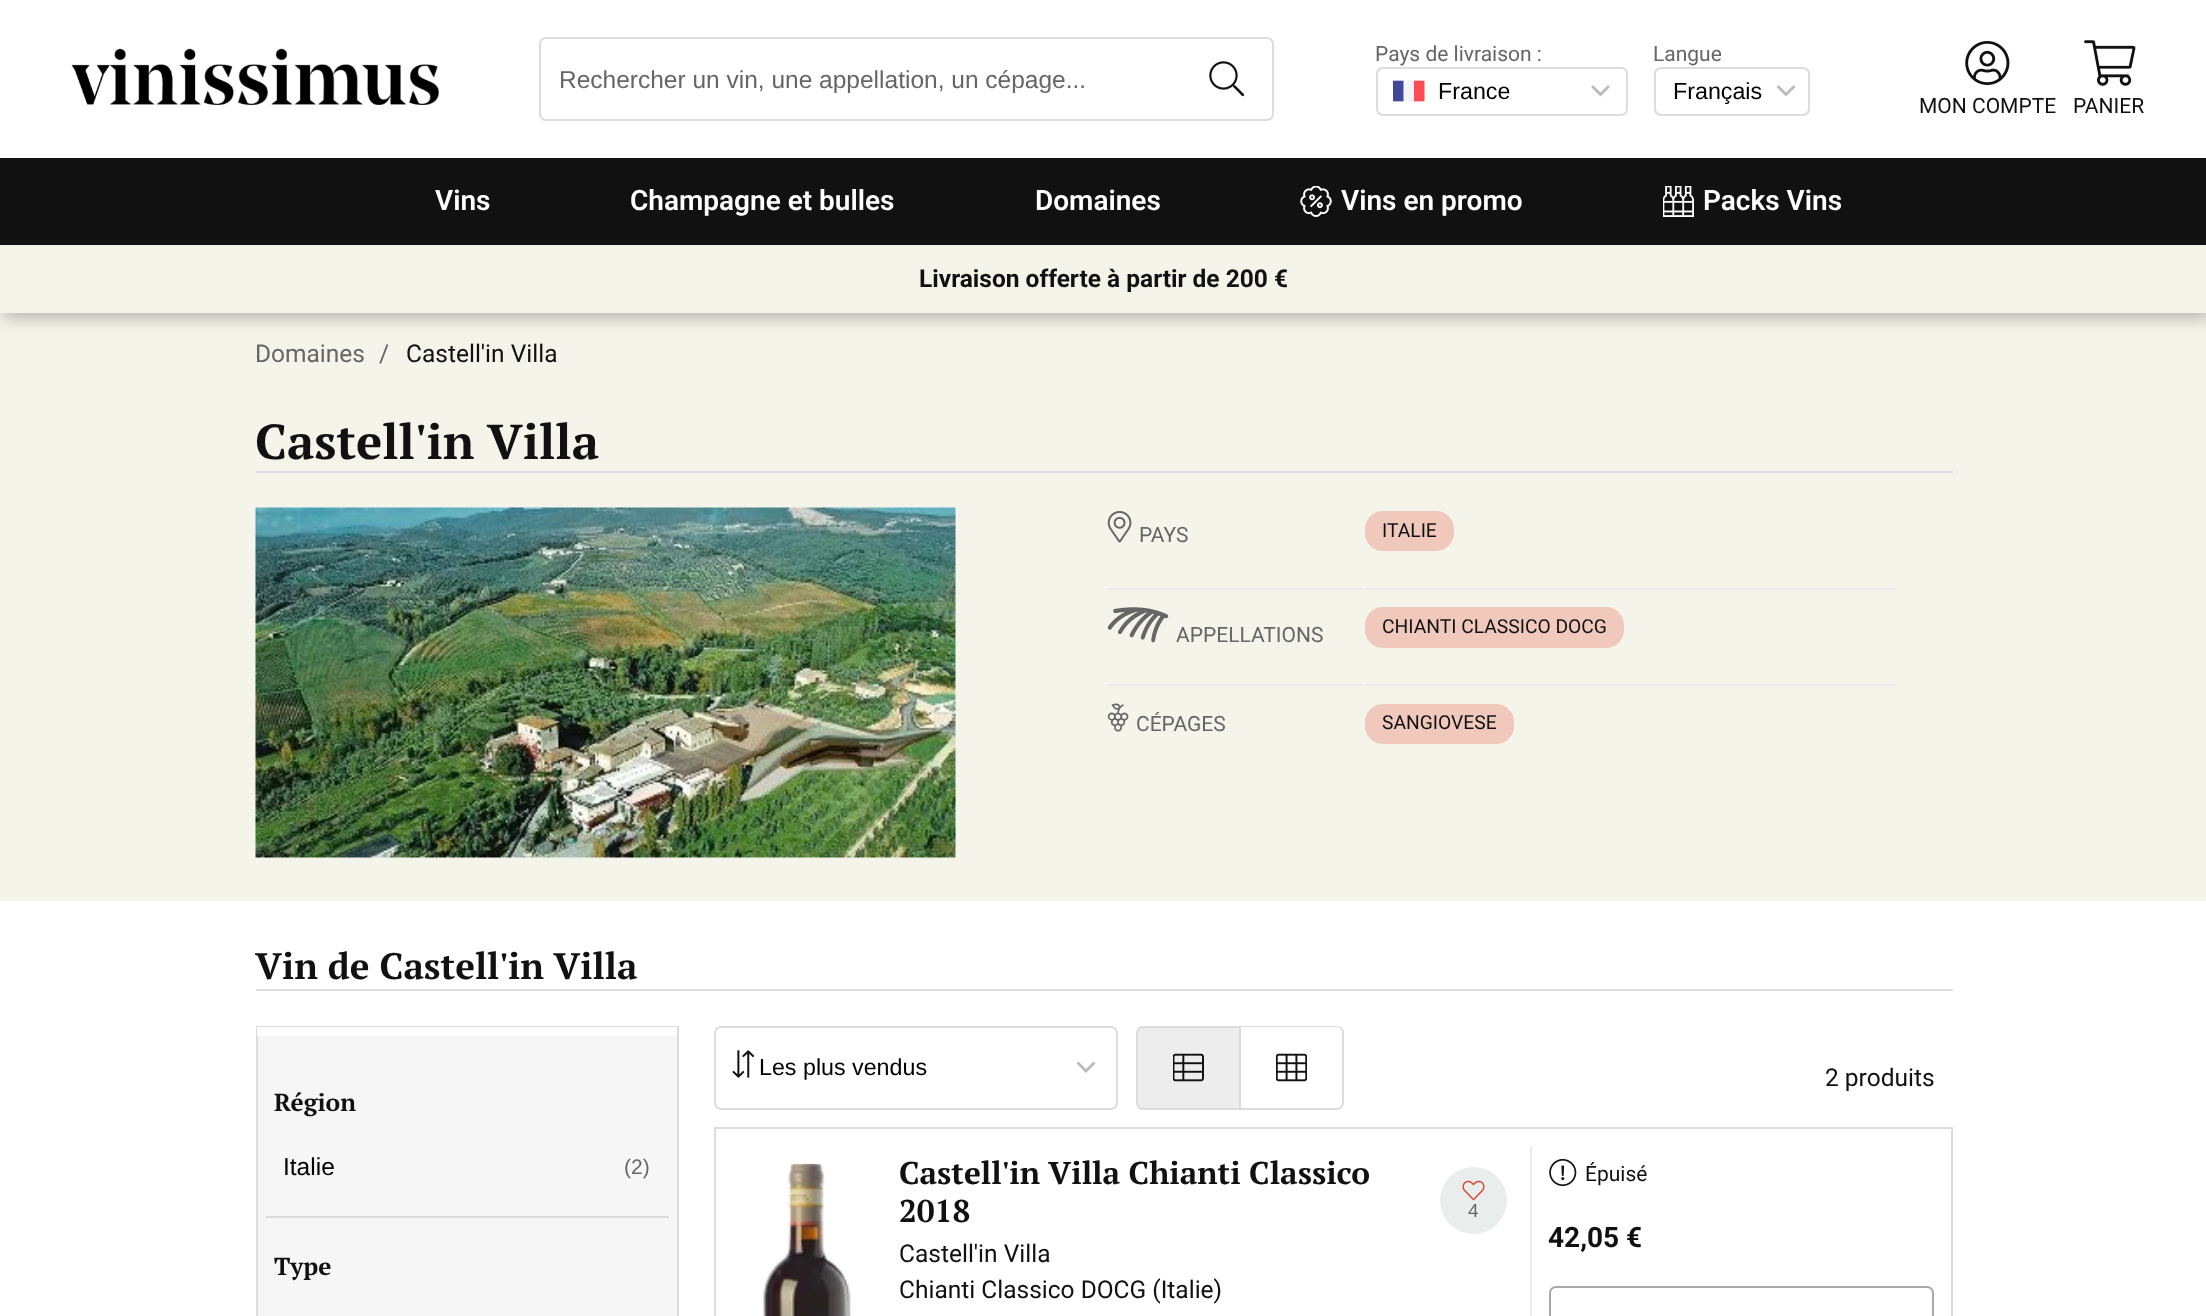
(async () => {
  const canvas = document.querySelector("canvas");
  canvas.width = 2206;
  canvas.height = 1316;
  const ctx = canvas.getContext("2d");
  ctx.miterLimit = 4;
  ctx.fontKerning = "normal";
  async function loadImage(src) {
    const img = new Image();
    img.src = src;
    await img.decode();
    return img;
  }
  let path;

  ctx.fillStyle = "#ffffff";
  ctx.fillRect(0, 0, 2206, 1316);
  ctx.drawImage(await loadImage("img/1.png"), 71, 48, 369, 57);
  ctx.beginPath();
  ctx.roundRect(540, 38, 733, 82, 6);
  ctx.strokeStyle = "#dbdcdd";
  ctx.lineWidth = 2;
  ctx.stroke();
  ctx.drawImage(await loadImage("img/2.png"), 1209, 61, 36, 36);
  ctx.drawImage(await loadImage("img/3.png"), 1393, 80, 32, 22);
  path = new Path2D("M1592 86L1600.5 94.5L1609 86");
  ctx.strokeStyle = "#bbbbbb";
  ctx.lineWidth = 2.8;
  ctx.stroke(path);
  ctx.beginPath();
  ctx.roundRect(1377, 68, 250, 47, 6);
  ctx.strokeStyle = "#dbdcdd";
  ctx.lineWidth = 2;
  ctx.stroke();
  path = new Path2D("M1777.5 86L1786 94.5L1794.5 86");
  ctx.strokeStyle = "#bbbbbb";
  ctx.lineWidth = 2.8;
  ctx.stroke(path);
  ctx.beginPath();
  ctx.roundRect(1655, 68, 154, 47, 6);
  ctx.strokeStyle = "#dbdcdd";
  ctx.lineWidth = 2;
  ctx.stroke();
  ctx.drawImage(await loadImage("img/4.png"), 1965, 41, 45, 44);
  ctx.drawImage(await loadImage("img/5.png"), 2084, 40, 52, 46);
  ctx.fillStyle = "#f5f4ea";
  ctx.fillRect(0, 313, 2206, 588);
  ctx.fillStyle = "#111111";
  ctx.fillRect(0, 158, 2206, 87);
  ctx.save();
  ctx.beginPath();
  ctx.rect(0, 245, 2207, 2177);
  ctx.clip();
  ctx.fillStyle = "rgba(102, 102, 102, 0.5)";
  ctx.filter = "blur(9px)";
  ctx.beginPath();
  ctx.rect(4, 249, 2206, 68);
  ctx.fill();
  ctx.filter = "none";
  ctx.restore();
  ctx.fillStyle = "#f5f4ea";
  ctx.fillRect(0, 245, 2206, 68);
  ctx.fillStyle = "#dbdcdd";
  ctx.fillRect(256, 471, 1697, 2);
  ctx.drawImage(await loadImage("img/6.png"), 255, 507, 701, 351);
  ctx.drawImage(await loadImage("img/7.png"), 1107, 511, 25, 32);
  ctx.fillStyle = "#f1c9bc";
  ctx.beginPath();
  ctx.roundRect(1365, 511, 89, 40, 18);
  ctx.fill();
  ctx.fillStyle = "#eaeaea";
  ctx.fillRect(1108, 588, 254, 2);
  ctx.drawImage(await loadImage("img/8.png"), 1107, 607, 62, 36);
  ctx.fillRect(1365, 588, 532, 2);
  ctx.fillStyle = "#f1c9bc";
  ctx.beginPath();
  ctx.roundRect(1365, 607, 259, 41, 18);
  ctx.fill();
  ctx.fillStyle = "#eaeaea";
  ctx.fillRect(1108, 684, 254, 2);
  ctx.drawImage(await loadImage("img/9.png"), 1107, 703, 22, 29);
  ctx.fillRect(1365, 684, 532, 2);
  ctx.fillStyle = "#f1c9bc";
  ctx.beginPath();
  ctx.roundRect(1365, 704, 149, 40, 18);
  ctx.fill();
  ctx.fillStyle = "#dbdcdd";
  ctx.fillRect(256, 989, 1697, 2);
  ctx.fillStyle = "#f6f6f6";
  ctx.fillRect(258, 1036, 419, 280);
  ctx.strokeRect(257, 1027, 421, 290);
  ctx.fillStyle = "#ffffff";
  ctx.fillRect(257, 1027, 420, 9);
  ctx.fillStyle = "#dbdcdd";
  ctx.fillRect(266, 1216, 403, 2);
  path = new Path2D("M1077.5 1062.5L1086 1071L1094.5 1062.5");
  ctx.strokeStyle = "#bbbbbb";
  ctx.lineWidth = 2.8;
  ctx.stroke(path);
  ctx.beginPath();
  ctx.roundRect(715, 1027, 402, 82, 6);
  ctx.strokeStyle = "#dbdcdd";
  ctx.lineWidth = 2;
  ctx.stroke();
  ctx.drawImage(await loadImage("img/10.png"), 732, 1050, 23, 28);
  ctx.fillStyle = "#ededee";
  ctx.beginPath();
  ctx.roundRect(1137, 1027, 103, 82, [6, 0, 0, 6]);
  ctx.fill();
  ctx.stroke();
  ctx.drawImage(await loadImage("img/11.png"), 1173, 1053, 31, 29);
  ctx.fillStyle = "#dbdcdd";
  path = new Path2D("M1241 1026H1337C1341 1026 1344 1029 1344 1032V1102C1344 1106 1341 1110 1337 1110H1241ZM1241 1027H1337C1340 1027 1342 1030 1342 1032V1102C1342 1105 1340 1108 1337 1108H1241Z");
  ctx.fill(path, "evenodd");
  ctx.drawImage(await loadImage("img/12.png"), 1276, 1053, 31, 29);
  for (const [x, y, w, h, color] of [
    [714, 1127, 1239, 2, "#dbdcdd"],
    [1951, 1127, 2, 189, "#dbdcdd"],
    [714, 1127, 2, 189, "#dbdcdd"],
    [1530, 1146, 2, 170, "#ededee"],
  ]) {
    ctx.fillStyle = color;
    ctx.fillRect(x, y, w, h);
  }
  ctx.drawImage(await loadImage("img/13.png"), 763, 1163, 88, 153);
  ctx.fillStyle = "#e9edeb";
  ctx.beginPath();
  ctx.arc(1473.5, 1200.5, 33.5, 0, Math.PI * 2);
  ctx.fill();
  ctx.drawImage(await loadImage("img/14.png"), 1462, 1180, 23, 20);
  ctx.drawImage(await loadImage("img/15.png"), 1549, 1159, 28, 27);
  ctx.beginPath();
  ctx.roundRect(1550, 1287, 383, 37, 6);
  ctx.strokeStyle = "#a6a7a9";
  ctx.stroke();
  ctx.drawImage(await loadImage("img/16.png"), 1300, 186, 32, 31);
  ctx.drawImage(await loadImage("img/17.png"), 1663, 186, 31, 31);
  ctx.save();
  ctx.beginPath();
  ctx.rect(558, 65, 662, 28);
  ctx.clip();
  ctx.font = "24.5px Liberation Sans";
  ctx.fillStyle = "#666666";
  ctx.fillText("Rechercher un vin, une appellation, un cépage...", 559, 88);
  ctx.restore();
  ctx.font = "21px Roboto";
  ctx.fillStyle = "#666666";
  ctx.fillText("Pays de livraison :", 1375, 61);
  ctx.font = "23.25px Liberation Sans";
  ctx.fillStyle = "#000000";
  ctx.fillText("France", 1438, 99);
  ctx.font = "21px Roboto";
  ctx.fillStyle = "#666666";
  ctx.fillText("Langue", 1653, 61);
  ctx.font = "23.25px Liberation Sans";
  ctx.fillStyle = "#000000";
  ctx.fillText("Français", 1673, 99);
  ctx.font = "21px Roboto";
  ctx.fillStyle = "#111111";
  ctx.fillText("MON COMPTE", 1919, 113);
  ctx.fillText("PANIER", 2073, 113);
  ctx.font = "bold 24.5px Roboto";
  ctx.fillText("Livraison offerte à partir de 200 €", 919, 287);
  ctx.font = "24.5px Roboto";
  ctx.fillStyle = "#666666";
  ctx.fillText("Domaines", 255, 362);
  ctx.fillText("/", 379, 362);
  ctx.fillStyle = "#111111";
  ctx.fillText("Castell'in Villa", 406, 362);
  ctx.font = "bold 49px PT Serif";
  ctx.fillText("Castell'in Villa", 255, 459);
  ctx.font = "21px Roboto";
  ctx.fillStyle = "#666666";
  ctx.fillText("PAYS", 1139, 542);
  ctx.font = "19.25px Roboto";
  ctx.fillStyle = "#111111";
  ctx.fillText("ITALIE", 1382, 537);
  ctx.font = "21px Roboto";
  ctx.fillStyle = "#666666";
  ctx.fillText("APPELLATIONS", 1176, 642);
  ctx.font = "19.25px Roboto";
  ctx.fillStyle = "#111111";
  ctx.fillText("CHIANTI CLASSICO DOCG", 1382, 633);
  ctx.font = "21px Roboto";
  ctx.fillStyle = "#666666";
  ctx.fillText("CÉPAGES", 1136, 731);
  ctx.font = "19.25px Roboto";
  ctx.fillStyle = "#111111";
  ctx.fillText("SANGIOVESE", 1382, 729);
  ctx.font = "bold 36.75px PT Serif";
  ctx.fillText("Vin de Castell'in Villa", 255, 979);
  ctx.font = "bold 24.5px PT Serif";
  ctx.fillText("Région", 274, 1111);
  ctx.font = "24.5px Liberation Sans";
  ctx.fillStyle = "#000000";
  ctx.fillText("Italie", 283, 1175);
  ctx.font = "21px Liberation Sans";
  ctx.fillStyle = "#666666";
  ctx.fillText("(2)", 624, 1174);
  ctx.font = "bold 24.5px PT Serif";
  ctx.fillStyle = "#111111";
  ctx.fillText("Type", 274, 1275);
  ctx.font = "23.25px Liberation Sans";
  ctx.fillStyle = "#000000";
  ctx.fillText("Les plus vendus", 759, 1075);
  ctx.font = "24.5px Roboto";
  ctx.fillStyle = "#111111";
  ctx.fillText("2 produits", 1825, 1086);
  ctx.font = "bold 31.5px PT Serif";
  ctx.fillText("Castell'in Villa Chianti Classico", 899, 1184);
  ctx.fillText("2018", 899, 1222);
  ctx.font = "24.5px Roboto";
  ctx.fillText("Castell'in Villa", 899, 1262);
  ctx.fillText("Chianti Classico DOCG (Italie)", 899, 1298);
  ctx.font = "19px Liberation Sans";
  ctx.fillStyle = "#666666";
  ctx.fillText("4", 1468, 1217);
  ctx.font = "21px Roboto";
  ctx.fillStyle = "#111111";
  ctx.fillText("Épuisé", 1585, 1181);
  ctx.font = "bold 28px Roboto";
  ctx.fillText("42,05 €", 1548, 1247);
  ctx.font = "600 28px Roboto";
  ctx.fillStyle = "#ffffff";
  for (const [text, x, y] of [
    ["Vins", 435, 210],
    ["Champagne et bulles", 630, 210],
    ["Domaines", 1035, 210],
    ["Vins en promo", 1341, 210],
    ["Packs Vins", 1703, 210],
  ]) {
    ctx.fillText(text, x, y);
  }
})();
